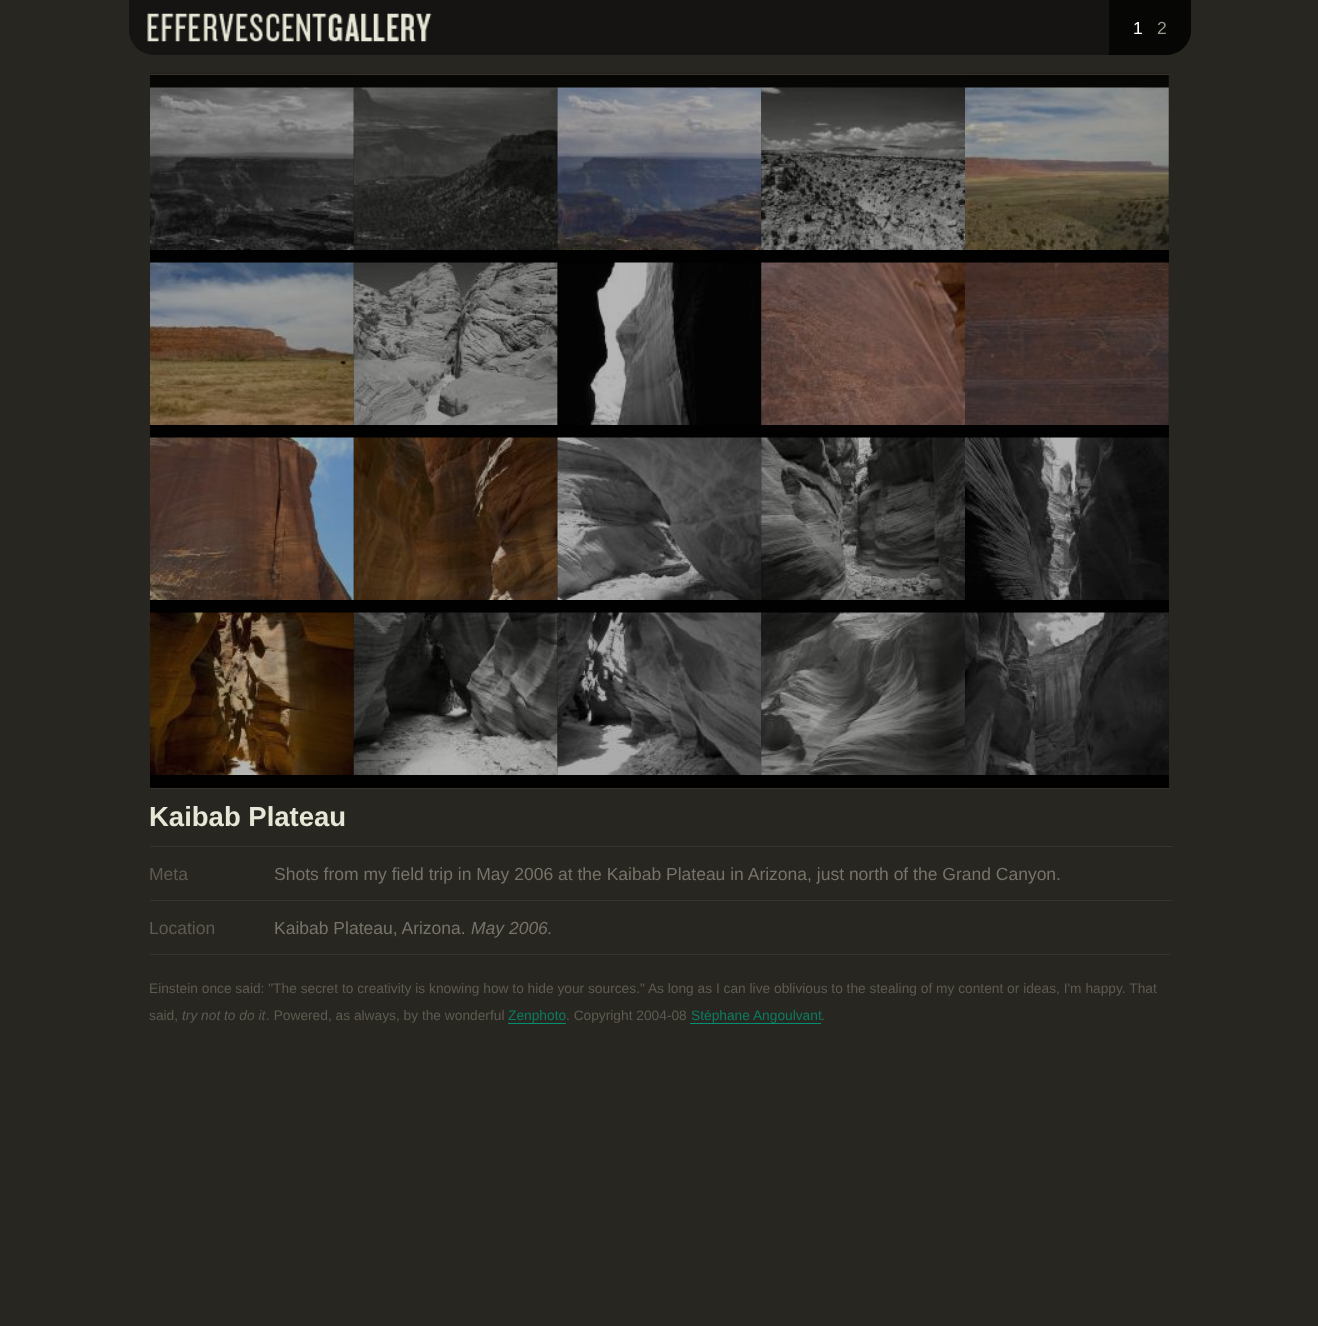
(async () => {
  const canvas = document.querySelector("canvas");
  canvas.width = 1318;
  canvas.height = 1326;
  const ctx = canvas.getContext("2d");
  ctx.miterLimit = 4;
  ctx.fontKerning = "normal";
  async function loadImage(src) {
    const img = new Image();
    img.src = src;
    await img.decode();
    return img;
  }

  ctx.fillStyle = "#282621";
  ctx.fillRect(0, 0, 1318, 1326);
  ctx.fillStyle = "#151412";
  ctx.beginPath();
  ctx.roundRect(129, 0, 1062, 55, [0, 0, 25, 25]);
  ctx.fill();
  ctx.drawImage(await loadImage("img/1.png"), 147, 12, 285, 30);
  ctx.fillStyle = "#060605";
  ctx.beginPath();
  ctx.roundRect(1109, 0, 82, 55, [0, 0, 25, 0]);
  ctx.fill();
  ctx.drawImage(await loadImage("img/2.png"), 150, 73, 1019, 715);
  for (const [x, y, w, h, color] of [
    [150, 74, 1019, 1, "#38352c"],
    [150, 788, 1019, 1, "#38352c"],
    [150, 250, 204, 13, "rgba(0, 0, 0, 0.7)"],
  ]) {
    ctx.fillStyle = color;
    ctx.fillRect(x, y, w, h);
  }
  ctx.drawImage(await loadImage("img/3.png"), 150, 87, 204, 163);
  ctx.fillRect(354, 250, 204, 13);
  ctx.drawImage(await loadImage("img/4.png"), 353, 87, 205, 163);
  ctx.fillRect(558, 250, 203, 13);
  ctx.drawImage(await loadImage("img/5.png"), 557, 87, 205, 163);
  ctx.fillRect(761, 250, 204, 13);
  ctx.drawImage(await loadImage("img/6.png"), 761, 87, 204, 163);
  ctx.fillRect(965, 250, 204, 13);
  ctx.drawImage(await loadImage("img/7.png"), 965, 87, 204, 163);
  ctx.fillRect(150, 425, 204, 13);
  ctx.drawImage(await loadImage("img/8.png"), 150, 262, 204, 163);
  ctx.fillRect(354, 425, 204, 13);
  ctx.drawImage(await loadImage("img/9.png"), 353, 262, 205, 163);
  ctx.fillRect(558, 425, 203, 13);
  ctx.drawImage(await loadImage("img/10.png"), 557, 262, 204, 163);
  ctx.fillRect(761, 425, 204, 13);
  ctx.drawImage(await loadImage("img/11.png"), 761, 262, 204, 163);
  ctx.fillRect(965, 425, 204, 13);
  ctx.drawImage(await loadImage("img/12.png"), 965, 262, 204, 163);
  ctx.fillRect(150, 600, 204, 13);
  ctx.drawImage(await loadImage("img/13.png"), 150, 437, 204, 163);
  ctx.fillRect(354, 600, 204, 13);
  ctx.drawImage(await loadImage("img/14.png"), 353, 437, 205, 163);
  ctx.fillRect(558, 600, 203, 13);
  ctx.drawImage(await loadImage("img/15.png"), 557, 437, 205, 163);
  ctx.fillRect(761, 600, 204, 13);
  ctx.drawImage(await loadImage("img/16.png"), 761, 437, 204, 163);
  ctx.fillRect(965, 600, 204, 13);
  ctx.drawImage(await loadImage("img/17.png"), 965, 437, 204, 163);
  ctx.fillRect(150, 775, 204, 13);
  ctx.drawImage(await loadImage("img/18.png"), 150, 612, 204, 163);
  ctx.fillRect(354, 775, 204, 13);
  ctx.drawImage(await loadImage("img/19.png"), 353, 612, 205, 163);
  ctx.fillRect(558, 775, 203, 13);
  ctx.drawImage(await loadImage("img/20.png"), 557, 612, 205, 163);
  ctx.fillRect(761, 775, 204, 13);
  ctx.drawImage(await loadImage("img/21.png"), 761, 612, 204, 163);
  ctx.fillRect(965, 775, 204, 13);
  ctx.drawImage(await loadImage("img/22.png"), 965, 612, 204, 163);
  for (const [x, y, w, h, color] of [
    [150, 846, 1023, 1, "#38352c"],
    [150, 900, 1023, 1, "#38352c"],
    [150, 954, 1020, 1, "#38352c"],
    [508, 1023, 58, 1, "#008f73"],
    [690, 1023, 131, 1, "#008f73"],
  ]) {
    ctx.fillStyle = color;
    ctx.fillRect(x, y, w, h);
  }
  ctx.font = "17.5px Liberation Sans";
  ctx.fillStyle = "#ffffff";
  ctx.fillText("1", 1133, 34);
  ctx.fillStyle = "#9b978d";
  ctx.fillText("2", 1157, 34);
  ctx.font = "bold 27.5px Liberation Sans";
  ctx.fillStyle = "#e7e7d7";
  ctx.fillText("Kaibab Plateau", 149, 826);
  ctx.font = "17.5px Liberation Sans";
  ctx.fillStyle = "#5e5a50";
  ctx.fillText("Meta", 149, 880);
  ctx.fillStyle = "#777369";
  ctx.fillText("Shots from my field trip in May 2006 at the Kaibab Plateau in Arizona, just north of the Grand Canyon.", 274, 880);
  ctx.fillStyle = "#5e5a50";
  ctx.fillText("Location", 149, 934);
  ctx.fillStyle = "#777369";
  ctx.fillText("Kaibab Plateau, Arizona.", 274, 934);
  ctx.font = "italic 17.5px Liberation Sans";
  ctx.fillText("May 2006.", 471, 934);
  ctx.font = "13.75px Liberation Sans";
  ctx.fillStyle = "#5e5a50";
  ctx.fillText("Einstein once said: \"The secret to creativity is knowing how to hide your sources.\" As long as I can live oblivious to the stealing of my content or ideas, I'm happy. That", 149, 993);
  ctx.fillText("said,", 149, 1020);
  ctx.font = "italic 13.75px Liberation Sans";
  ctx.fillText("try not to do it", 182, 1020);
  ctx.font = "13.75px Liberation Sans";
  ctx.fillText(". Powered, as always, by the wonderful", 266, 1020);
  ctx.fillStyle = "#0c7c61";
  ctx.fillText("Zenphoto", 508, 1020);
  ctx.fillStyle = "#5e5a50";
  ctx.fillText(". Copyright 2004-08", 566, 1020);
  ctx.fillStyle = "#0c7c61";
  ctx.fillText("Stéphane Angoulvant", 691, 1020);
  ctx.fillStyle = "#5e5a50";
  ctx.fillText(".", 821, 1020);
})();
